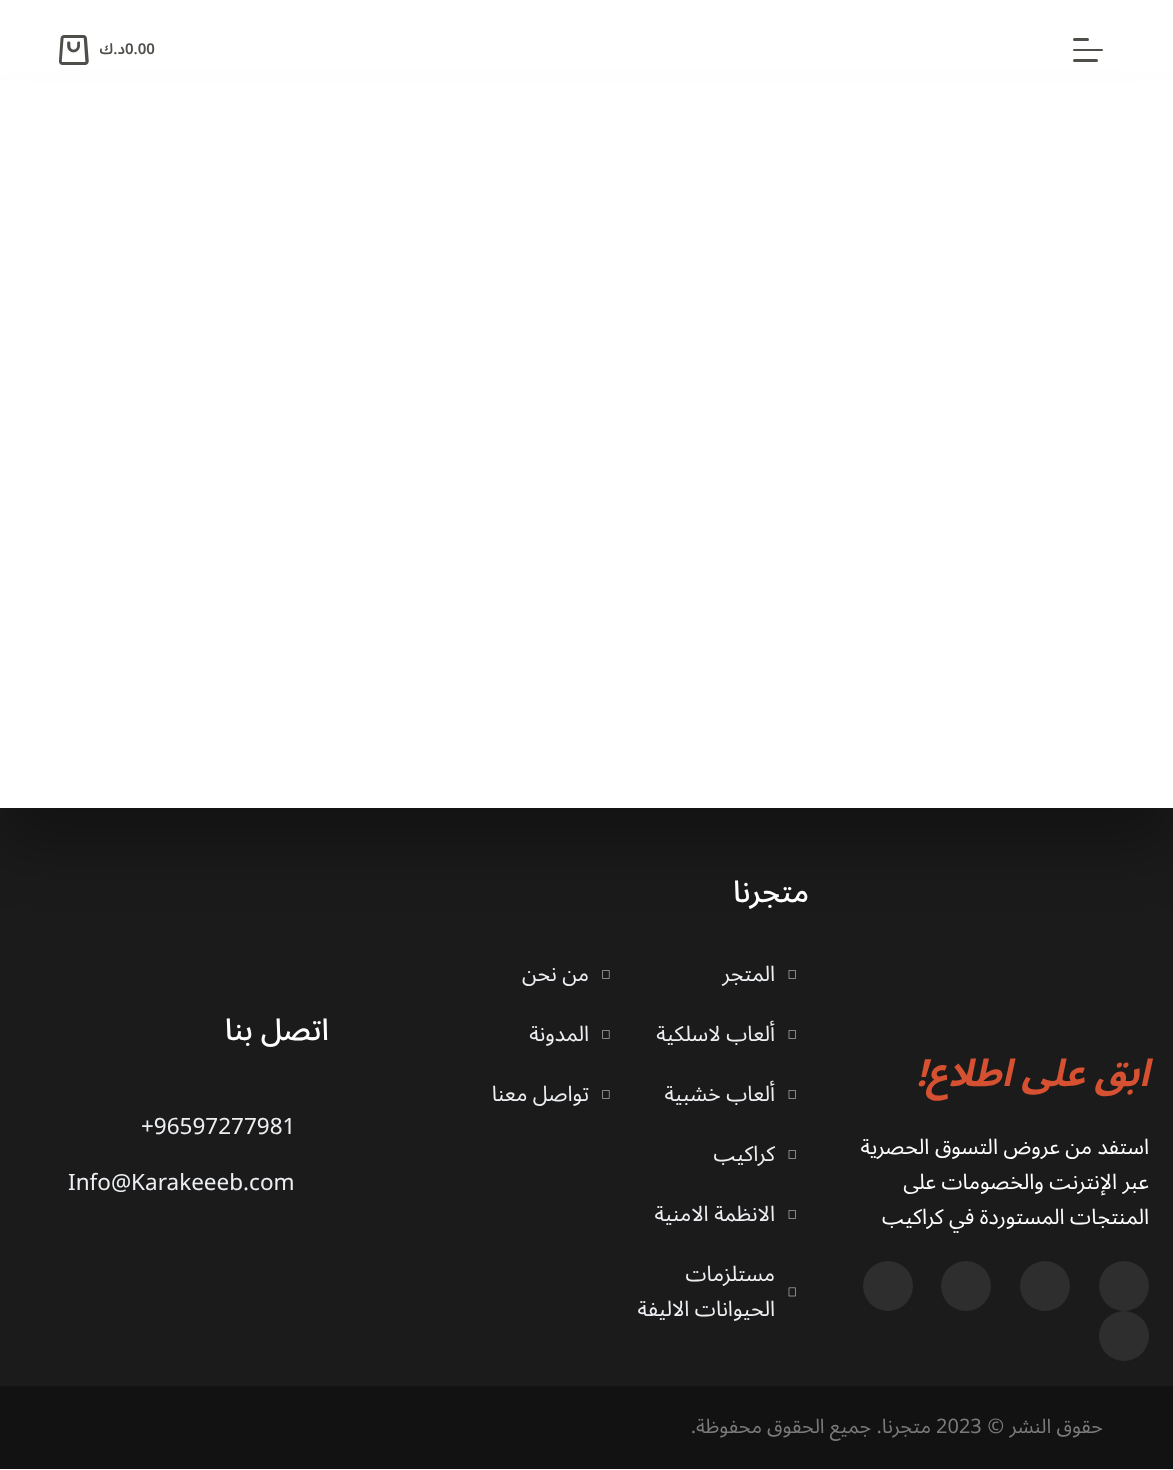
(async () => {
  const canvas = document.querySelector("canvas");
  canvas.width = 1173;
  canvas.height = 1470;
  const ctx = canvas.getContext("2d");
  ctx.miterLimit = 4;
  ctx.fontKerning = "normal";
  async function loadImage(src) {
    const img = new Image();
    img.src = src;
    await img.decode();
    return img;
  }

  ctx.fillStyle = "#ffffff";
  ctx.fillRect(0, 0, 1173, 1470);
  ctx.fillStyle = "#504e4a";
  ctx.beginPath();
  ctx.roundRect(1073, 38, 16, 3, 1.5);
  ctx.fill();
  ctx.fillStyle = "#1b1b1b";
  ctx.fillRect(0, 808, 1173, 578);
  ctx.fillStyle = "rgba(0, 0, 0, 0.3)";
  ctx.filter = "blur(31px)";
  ctx.beginPath();
  ctx.rect(0, 138, 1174, 707);
  ctx.fill();
  ctx.filter = "none";
  ctx.fillStyle = "#504e4a";
  ctx.beginPath();
  ctx.roundRect(1073, 49, 30, 2, 1);
  ctx.fill();
  ctx.beginPath();
  ctx.roundRect(1073, 59, 25, 3, 1.5);
  ctx.fill();
  ctx.drawImage(await loadImage("img/1.png"), 59, 35, 30, 30);
  ctx.fillStyle = "#ffffff";
  ctx.fillRect(0, 81, 1173, 727);
  ctx.fillStyle = "#2e2e2e";
  ctx.beginPath();
  ctx.arc(1124, 1286, 25, 0, Math.PI * 2);
  ctx.fill();
  ctx.beginPath();
  ctx.arc(1045, 1286, 25, 0, Math.PI * 2);
  ctx.fill();
  ctx.beginPath();
  ctx.arc(966, 1286, 25, 0, Math.PI * 2);
  ctx.fill();
  ctx.beginPath();
  ctx.arc(888, 1286, 25, 0, Math.PI * 2);
  ctx.fill();
  ctx.beginPath();
  ctx.arc(1124, 1336, 25, 0, Math.PI * 2);
  ctx.fill();
  ctx.drawImage(await loadImage("img/2.png"), 788, 970, 8, 9);
  ctx.drawImage(await loadImage("img/2.png"), 788, 1030, 8, 9);
  ctx.drawImage(await loadImage("img/2.png"), 788, 1090, 8, 9);
  ctx.drawImage(await loadImage("img/2.png"), 788, 1150, 8, 9);
  ctx.drawImage(await loadImage("img/2.png"), 788, 1210, 8, 9);
  ctx.drawImage(await loadImage("img/3.png"), 788, 1287, 8, 10);
  ctx.drawImage(await loadImage("img/4.png"), 602, 970, 8, 9);
  ctx.drawImage(await loadImage("img/4.png"), 602, 1030, 8, 9);
  ctx.drawImage(await loadImage("img/4.png"), 602, 1090, 8, 9);
  ctx.fillStyle = "#121212";
  ctx.fillRect(0, 1386, 1173, 83);
  ctx.font = "600 15px Noto Sans Arabic";
  ctx.fillStyle = "#504e4a";
  ctx.fillText("0.00", 125, 54);
  ctx.direction = "rtl";
  ctx.fillText("د.ك", 125, 54);
  ctx.font = "italic bold 37.5px Noto Sans Arabic";
  ctx.fillStyle = "#d65131";
  ctx.fillText("ابق على اطلاع!", 1149, 1086);
  ctx.font = "21.25px Noto Sans Arabic";
  ctx.fillStyle = "#ffffff";
  for (const [text, x, y] of [
    ["استفد من عروض التسوق الحصرية", 1149, 1154],
    ["عبر الإنترنت والخصومات على", 1149, 1189],
    ["المنتجات المستوردة في كراكيب", 1149, 1224],
  ]) {
    ctx.fillText(text, x, y);
  }
  ctx.font = "500 30px Noto Sans Arabic";
  ctx.fillText("متجرنا", 809, 902);
  ctx.font = "21.25px Noto Sans Arabic";
  ctx.fillStyle = "#edeff2";
  for (const [text, x, y] of [
    ["المتجر", 775, 981],
    ["ألعاب لاسلكية", 775, 1041],
    ["ألعاب خشبية", 775, 1101],
    ["كراكيب", 775, 1161],
    ["الانظمة الامنية", 775, 1221],
    ["مستلزمات", 775, 1281],
    ["الحيوانات الاليفة", 775, 1316],
    ["من نحن", 589, 981],
    ["المدونة", 589, 1041],
    ["تواصل معنا", 589, 1101],
  ]) {
    ctx.fillText(text, x, y);
  }
  ctx.font = "500 30px Noto Sans Arabic";
  ctx.fillStyle = "#ffffff";
  ctx.fillText("اتصل بنا", 329, 1040);
  ctx.direction = "ltr";
  ctx.font = "22.5px Noto Sans Arabic";
  ctx.fillStyle = "#edeff2";
  ctx.fillText("+96597277981", 141, 1134);
  ctx.fillText("Info@Karakeeeb.com", 68, 1190);
  ctx.direction = "rtl";
  ctx.font = "20px Noto Sans Arabic";
  ctx.fillStyle = "#7a7a7a";
  ctx.fillText("حقوق النشر ©", 1103, 1433);
  ctx.direction = "ltr";
  ctx.fillText("2023", 936, 1433);
  ctx.direction = "rtl";
  ctx.fillText("متجرنا. جميع الحقوق محفوظة.", 931, 1433);
})();
